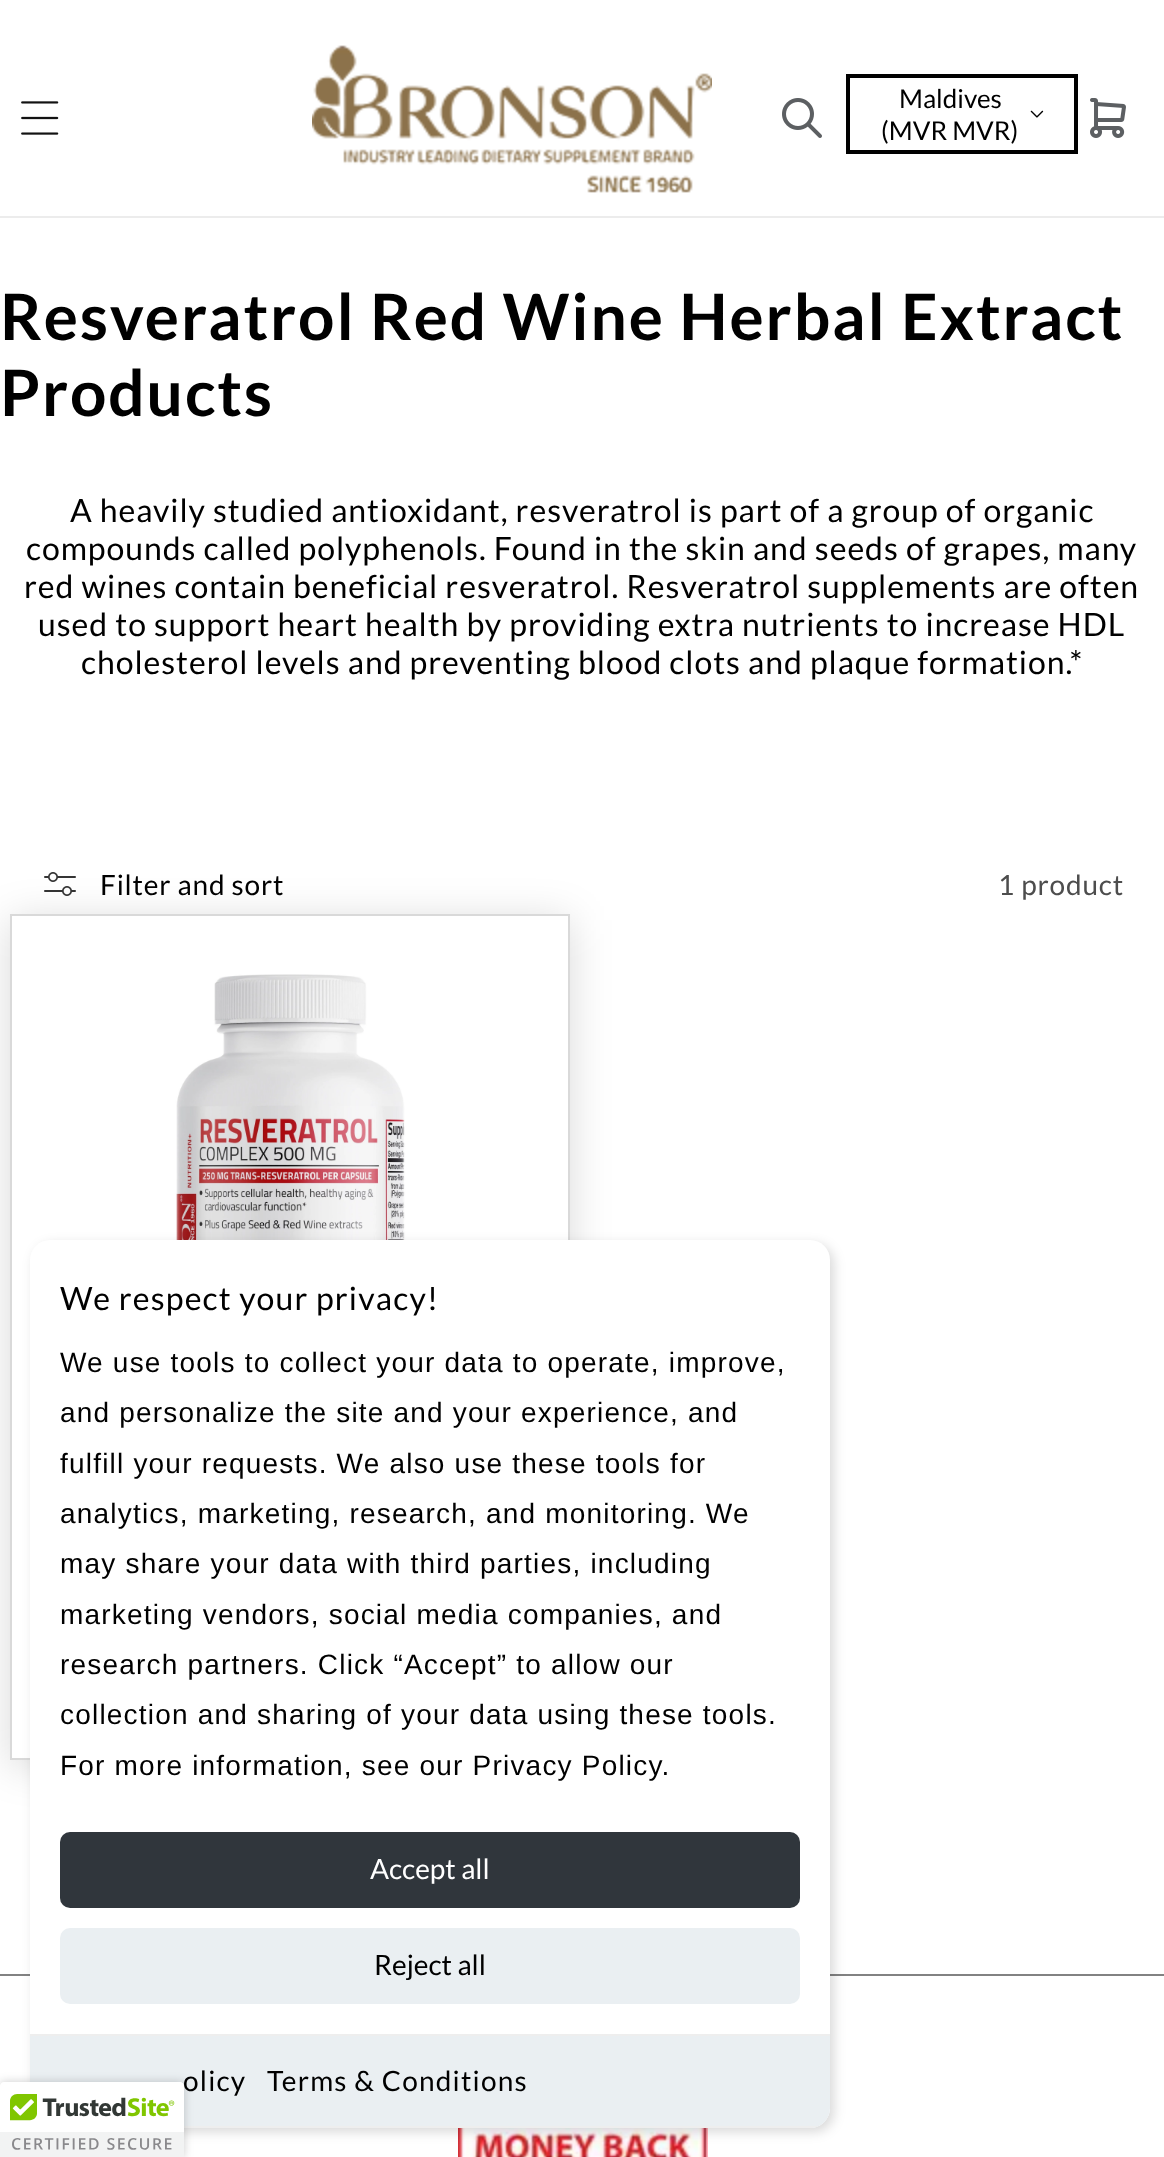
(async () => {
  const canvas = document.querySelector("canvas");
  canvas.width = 1164;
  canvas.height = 2157;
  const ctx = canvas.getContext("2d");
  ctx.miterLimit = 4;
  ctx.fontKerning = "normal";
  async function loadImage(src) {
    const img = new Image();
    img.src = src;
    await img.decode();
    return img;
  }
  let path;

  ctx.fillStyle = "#ffffff";
  ctx.fillRect(0, 0, 1164, 2157);
  ctx.fillStyle = "#ececec";
  ctx.fillRect(0, 216, 1164, 2);
  ctx.drawImage(await loadImage("img/1.png"), 21, 101, 38, 34);
  ctx.drawImage(await loadImage("img/2.png"), 312, 45, 400, 148);
  ctx.drawImage(await loadImage("img/3.png"), 782, 98, 40, 40);
  ctx.strokeStyle = "#000000";
  ctx.lineWidth = 4;
  ctx.strokeRect(848, 76, 228, 76);
  ctx.drawImage(await loadImage("img/4.png"), 1030, 110, 14, 8);
  ctx.drawImage(await loadImage("img/5.png"), 1090, 98, 36, 40);
  ctx.drawImage(await loadImage("img/7.png"), 44, 872, 32, 24);
  ctx.save();
  path = new Path2D("M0 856H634V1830H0ZM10 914H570V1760H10Z");
  ctx.clip(path, "evenodd");
  ctx.fillStyle = "rgba(0, 0, 0, 0.15)";
  ctx.filter = "blur(21px)";
  ctx.beginPath();
  ctx.rect(10, 920, 560, 846);
  ctx.fill();
  ctx.filter = "none";
  ctx.restore();
  ctx.strokeStyle = "#d9d9d9";
  ctx.lineWidth = 2;
  ctx.strokeRect(11, 915, 558, 844);
  ctx.drawImage(await loadImage("img/6.png"), 172, 974, 241, 266);
  ctx.fillStyle = "#828282";
  ctx.fillRect(0, 1974, 1164, 2);
  ctx.drawImage(await loadImage("img/8.png"), 458, 2128, 250, 29);
  ctx.fillStyle = "rgba(0, 0, 0, 0.15)";
  ctx.filter = "blur(6px)";
  ctx.beginPath();
  ctx.roundRect(34, 1244, 800, 888, 20);
  ctx.fill();
  ctx.filter = "none";
  ctx.fillStyle = "#ffffff";
  ctx.beginPath();
  ctx.roundRect(30, 1240, 800, 888, 20);
  ctx.fill();
  ctx.fillStyle = "#30363c";
  ctx.beginPath();
  ctx.roundRect(60, 1832, 740, 76, 10);
  ctx.fill();
  ctx.fillStyle = "#eaeff2";
  ctx.beginPath();
  ctx.roundRect(60, 1928, 740, 76, 10);
  ctx.fill();
  ctx.beginPath();
  ctx.roundRect(30, 2034, 800, 94, [0, 0, 20, 20]);
  ctx.fill();
  ctx.fillStyle = "#eeeeee";
  ctx.fillRect(30, 2034, 800, 2);
  ctx.save();
  ctx.beginPath();
  ctx.roundRect(30, 1240, 800, 888, 20);
  ctx.clip();
  ctx.fillRect(184, 2126, 635, 2);
  ctx.restore();
  ctx.fillStyle = "rgba(0, 0, 0, 0.2)";
  ctx.filter = "blur(5px)";
  ctx.beginPath();
  ctx.roundRect(0, 2082, 184, 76, 4);
  ctx.fill();
  ctx.filter = "none";
  ctx.fillStyle = "#ffffff";
  path = new Path2D("M0 2082H180C182 2082 184 2084 184 2086V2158H0Z");
  ctx.fill(path);
  ctx.drawImage(await loadImage("img/9.png"), 0, 2082, 184, 75);
  ctx.font = "26px Lato";
  ctx.fillStyle = "#000000";
  ctx.fillText("Maldives", 899, 108);
  ctx.fillText("(MVR MVR)", 881, 140);
  ctx.letterSpacing = "1.9px";
  ctx.font = "bold 64px Lato";
  ctx.fillText("Resveratrol Red Wine Herbal Extract", 0, 340);
  ctx.fillText("Products", 0, 416);
  ctx.letterSpacing = "0.95px";
  ctx.font = "32px Lato";
  for (const [text, x, y] of [
    ["A heavily studied antioxidant, resveratrol is part of a group of organic", 70, 522],
    ["compounds called polyphenols. Found in the skin and seeds of grapes, many", 26, 560],
    ["red wines contain beneficial resveratrol. Resveratrol supplements are often", 24, 598],
    ["used to support heart health by providing extra nutrients to increase HDL", 38, 636],
    ["cholesterol levels and preventing blood clots and plaque formation.*", 81, 674],
  ]) {
    ctx.fillText(text, x, y);
  }
  ctx.letterSpacing = "0.8px";
  ctx.font = "28px Lato";
  ctx.fillText("Filter and sort", 100, 895);
  ctx.fillStyle = "#4d4d4d";
  ctx.fillText("1 product", 998, 895);
  ctx.letterSpacing = "1.2px";
  ctx.font = "32px Lato";
  ctx.fillStyle = "#000000";
  ctx.fillText("We respect your privacy!", 60, 1310);
  ctx.font = "28px Liberation Sans";
  for (const [text, x, y] of [
    ["We use tools to collect your data to operate, improve,", 60, 1372],
    ["and personalize the site and your experience, and", 60, 1422],
    ["fulfill your requests. We also use these tools for", 60, 1473],
    ["analytics, marketing, research, and monitoring. We", 60, 1523],
    ["may share your data with third parties, including", 60, 1573],
    ["marketing vendors, social media companies, and", 60, 1624],
    ["research partners. Click “Accept” to allow our", 60, 1674],
    ["collection and sharing of your data using these tools.", 60, 1724],
    ["For more information, see our Privacy Policy.", 60, 1775],
  ]) {
    ctx.fillText(text, x, y);
  }
  ctx.letterSpacing = "0px";
  ctx.font = "28px Lato";
  ctx.fillStyle = "#ffffff";
  ctx.fillText("Accept all", 370, 1879);
  ctx.fillStyle = "#000000";
  ctx.fillText("Reject all", 374, 1975);
  ctx.letterSpacing = "1.2px";
  ctx.fillText("olicy", 183, 2091);
  ctx.fillText("Terms & Conditions", 267, 2091);
})();
